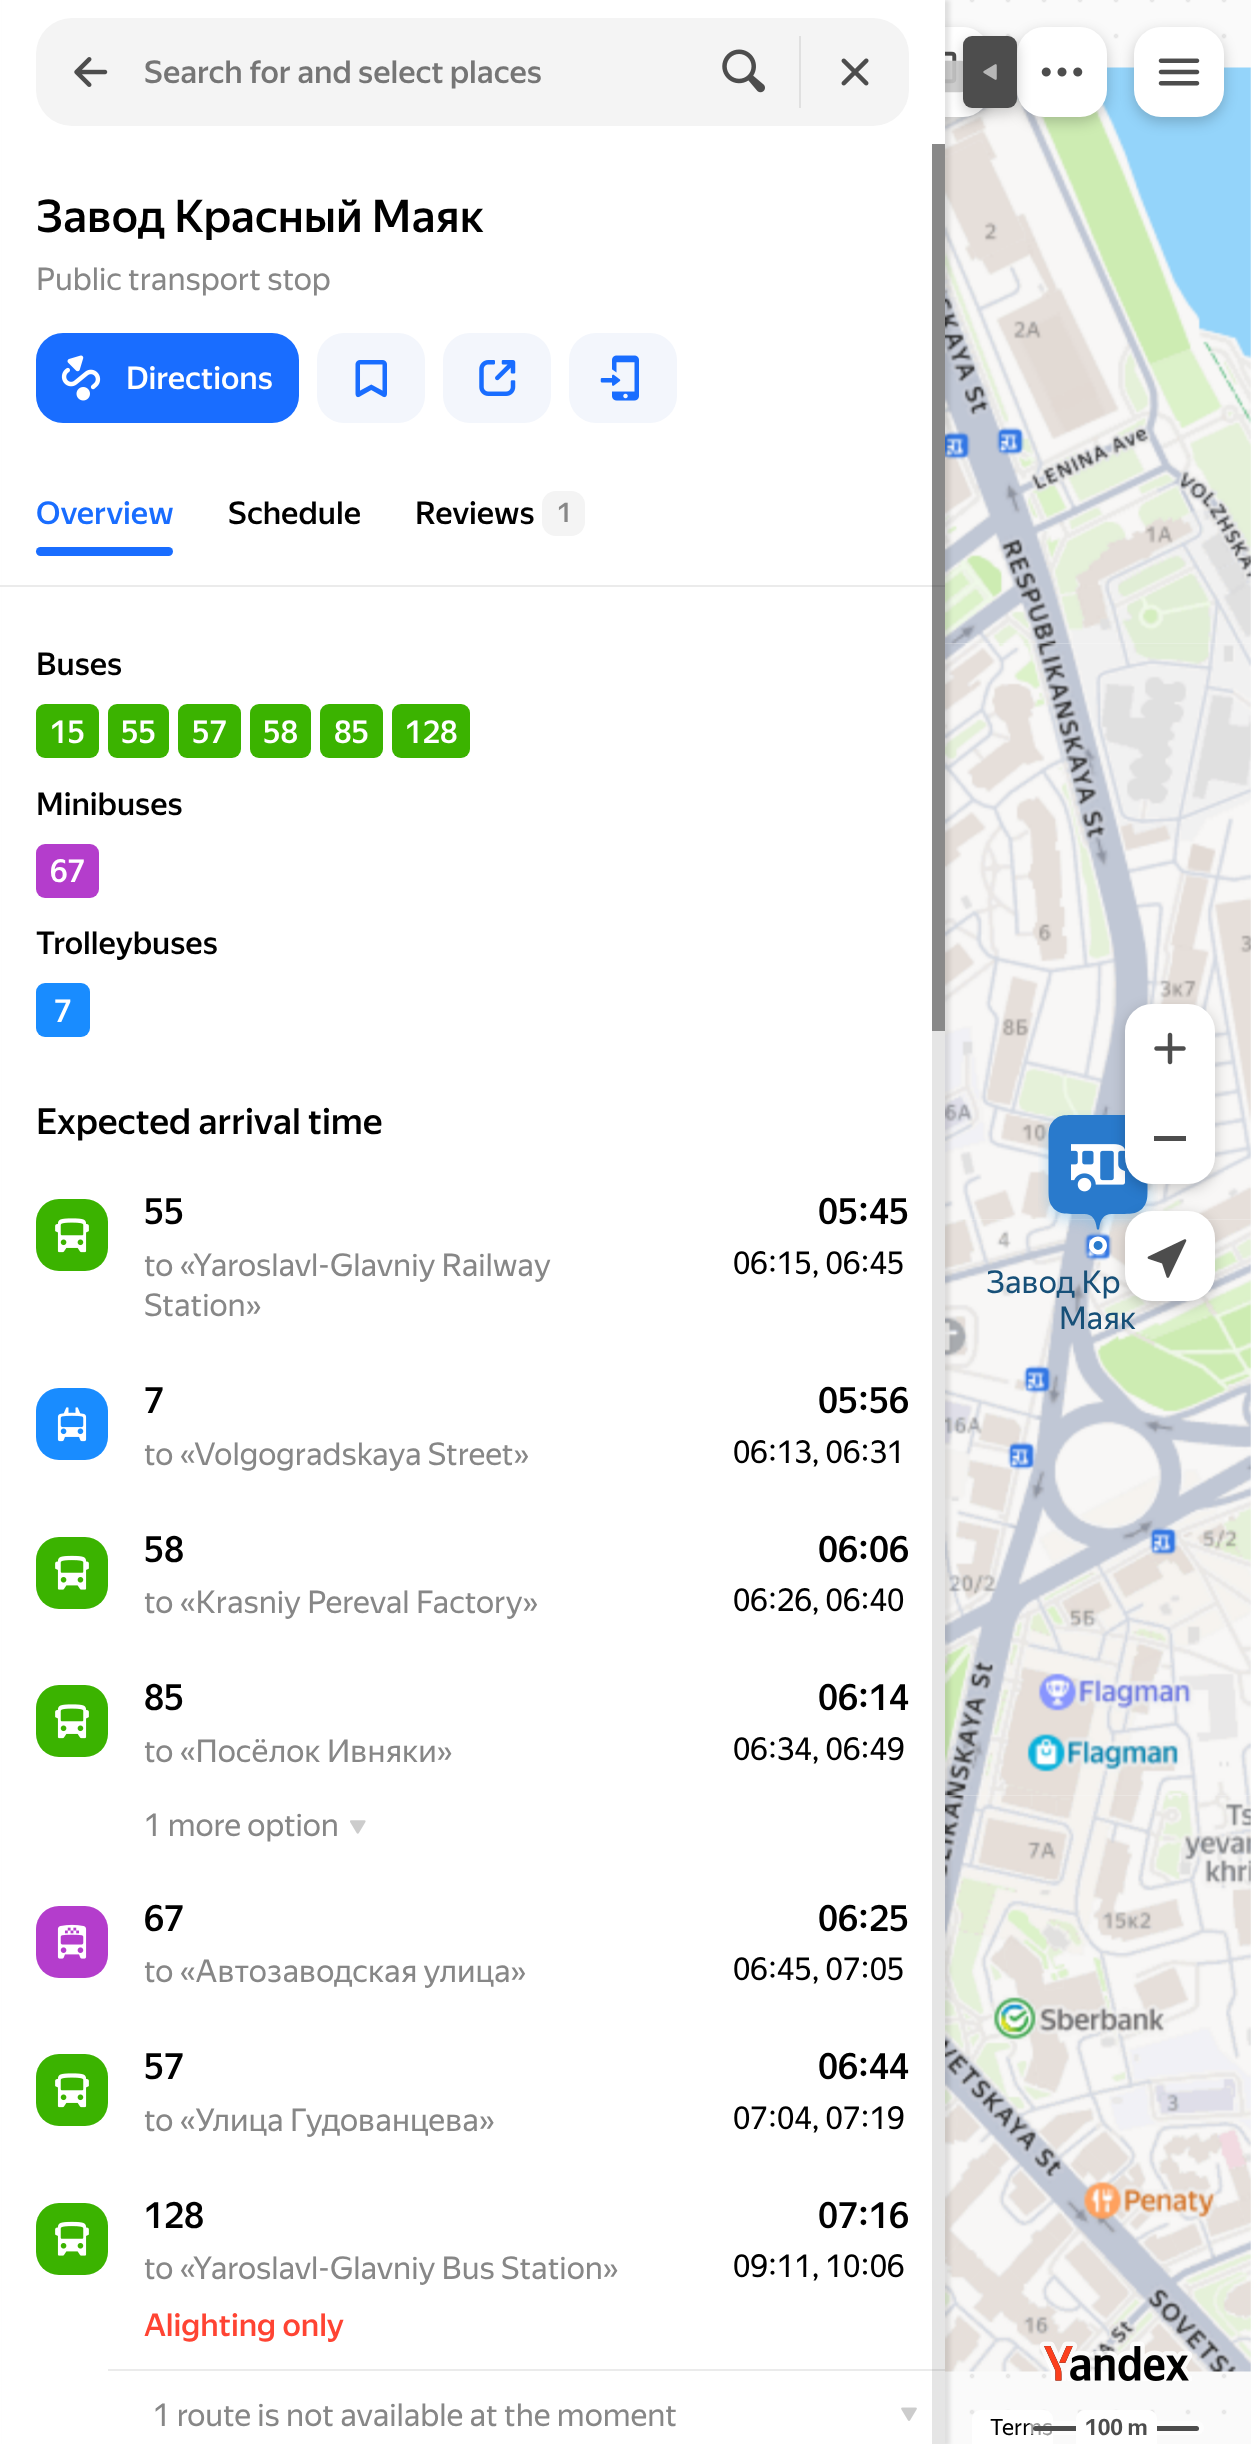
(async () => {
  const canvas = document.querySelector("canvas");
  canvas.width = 1251;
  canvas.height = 2444;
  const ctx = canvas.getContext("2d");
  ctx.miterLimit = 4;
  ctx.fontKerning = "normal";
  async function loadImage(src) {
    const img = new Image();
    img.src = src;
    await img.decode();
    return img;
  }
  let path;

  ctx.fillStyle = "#ffffff";
  ctx.fillRect(0, 0, 1251, 2444);
  ctx.drawImage(await loadImage("img/1.png"), 945, 0, 306, 2444);
  ctx.drawImage(await loadImage("img/22.png"), 945, 67, 306, 577);
  ctx.fillStyle = "rgba(0, 0, 0, 0.2)";
  ctx.filter = "blur(7px)";
  ctx.beginPath();
  ctx.roundRect(810, 32, 180, 90, 27);
  ctx.fill();
  ctx.filter = "none";
  ctx.fillStyle = "#ffffff";
  ctx.beginPath();
  ctx.roundRect(900, 27, 90, 90, [0, 27, 27, 0]);
  ctx.fill();
  ctx.drawImage(await loadImage("img/5.png"), 945, 51, 18, 42);
  ctx.drawImage(await loadImage("img/23.png"), 945, 643, 306, 577);
  ctx.drawImage(await loadImage("img/24.png"), 945, 1219, 306, 577);
  ctx.drawImage(await loadImage("img/25.png"), 945, 1795, 306, 577);
  ctx.fillStyle = "rgba(0, 0, 0, 0.1)";
  ctx.filter = "blur(2px)";
  ctx.beginPath();
  ctx.rect(5, 0, 945, 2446);
  ctx.fill();
  ctx.filter = "none";
  ctx.fillStyle = "rgba(0, 0, 0, 0.2)";
  ctx.filter = "blur(7px)";
  ctx.beginPath();
  ctx.roundRect(1017, 32, 90, 90, 27);
  ctx.fill();
  ctx.filter = "none";
  ctx.fillStyle = "#ffffff";
  ctx.beginPath();
  ctx.roundRect(1017, 27, 90, 90, 27);
  ctx.fill();
  ctx.fillStyle = "rgba(0, 0, 0, 0.2)";
  ctx.filter = "blur(7px)";
  ctx.beginPath();
  ctx.roundRect(963, 41, 54, 72, 9);
  ctx.fill();
  ctx.filter = "none";
  ctx.fillStyle = "#ffffff";
  ctx.fillRect(2, 0, 943, 2444);
  ctx.fillStyle = "#f4f4f4";
  ctx.beginPath();
  ctx.roundRect(36, 18, 873, 108, 36);
  ctx.fill();
  ctx.drawImage(await loadImage("img/2.png"), 74, 57, 34, 30);
  ctx.drawImage(await loadImage("img/3.png"), 722, 49, 43, 44);
  ctx.fillStyle = "#e0e0e0";
  ctx.fillRect(799, 36, 2, 72);
  ctx.drawImage(await loadImage("img/4.png"), 841, 58, 28, 28);
  ctx.drawImage(await loadImage("img/6.png"), 1041, 67, 42, 10);
  ctx.fillStyle = "rgba(0, 0, 0, 0.2)";
  ctx.filter = "blur(7px)";
  ctx.beginPath();
  ctx.roundRect(1134, 32, 90, 90, 27);
  ctx.fill();
  ctx.filter = "none";
  ctx.fillStyle = "#ffffff";
  ctx.beginPath();
  ctx.roundRect(1134, 27, 90, 90, 27);
  ctx.fill();
  ctx.drawImage(await loadImage("img/7.png"), 1158, 58, 42, 28);
  ctx.drawImage(await loadImage("img/26.png"), 1038, 1110, 120, 145);
  ctx.drawImage(await loadImage("img/27.png"), 1071, 1144, 54, 48);
  ctx.fillStyle = "rgba(0, 0, 0, 0.2)";
  ctx.filter = "blur(7px)";
  ctx.beginPath();
  ctx.roundRect(1125, 1008, 90, 180, 27);
  ctx.fill();
  ctx.filter = "none";
  ctx.fillStyle = "#ffffff";
  ctx.beginPath();
  ctx.roundRect(1125, 1004, 90, 90, [27, 27, 0, 0]);
  ctx.fill();
  ctx.drawImage(await loadImage("img/8.png"), 1154, 1032, 32, 33);
  ctx.beginPath();
  ctx.roundRect(1125, 1094, 90, 90, [0, 0, 27, 27]);
  ctx.fill();
  ctx.fillStyle = "#4d4d4d";
  ctx.fillRect(1154, 1136, 32, 5);
  ctx.fillStyle = "rgba(0, 0, 0, 0.2)";
  ctx.filter = "blur(7px)";
  ctx.beginPath();
  ctx.roundRect(1125, 1215, 90, 90, 27);
  ctx.fill();
  ctx.filter = "none";
  ctx.fillStyle = "#ffffff";
  ctx.beginPath();
  ctx.roundRect(1125, 1211, 90, 90, 27);
  ctx.fill();
  ctx.drawImage(await loadImage("img/9.png"), 1147, 1239, 40, 39);
  ctx.fillStyle = "#4d4d4d";
  ctx.beginPath();
  ctx.roundRect(963, 36, 54, 72, 9);
  ctx.fill();
  ctx.drawImage(await loadImage("img/10.png"), 983, 64, 14, 16);
  ctx.fillStyle = "#196dff";
  ctx.beginPath();
  ctx.roundRect(36, 333, 263, 90, 27);
  ctx.fill();
  ctx.drawImage(await loadImage("img/11.png"), 61, 355, 40, 46);
  ctx.fillStyle = "#f3f6fc";
  ctx.beginPath();
  ctx.roundRect(317, 333, 108, 90, 27);
  ctx.fill();
  ctx.drawImage(await loadImage("img/12.png"), 355, 360, 32, 38);
  ctx.beginPath();
  ctx.roundRect(443, 333, 108, 90, 27);
  ctx.fill();
  ctx.drawImage(await loadImage("img/13.png"), 479, 360, 37, 36);
  ctx.beginPath();
  ctx.roundRect(569, 333, 108, 90, 27);
  ctx.fill();
  ctx.drawImage(await loadImage("img/14.png"), 600, 355, 39, 46);
  ctx.fillStyle = "#f4f4f4";
  ctx.beginPath();
  ctx.roundRect(542, 491, 43, 45, 14);
  ctx.fill();
  ctx.fillStyle = "#196dff";
  ctx.beginPath();
  ctx.roundRect(36, 547, 137, 9, 4.5);
  ctx.fill();
  ctx.fillStyle = "#ebebeb";
  ctx.fillRect(0, 585, 945, 2);
  ctx.fillStyle = "#3bb300";
  ctx.beginPath();
  ctx.roundRect(36, 704, 63, 54, 9);
  ctx.fill();
  ctx.beginPath();
  ctx.roundRect(108, 704, 61, 54, 9);
  ctx.fill();
  ctx.beginPath();
  ctx.roundRect(178, 704, 63, 54, 9);
  ctx.fill();
  ctx.beginPath();
  ctx.roundRect(250, 704, 61, 54, 9);
  ctx.fill();
  ctx.beginPath();
  ctx.roundRect(320, 704, 63, 54, 9);
  ctx.fill();
  ctx.beginPath();
  ctx.roundRect(392, 704, 78, 54, 9);
  ctx.fill();
  ctx.fillStyle = "#b43dcc";
  ctx.beginPath();
  ctx.roundRect(36, 844, 63, 54, 9);
  ctx.fill();
  ctx.fillStyle = "#198cff";
  ctx.beginPath();
  ctx.roundRect(36, 983, 54, 54, 9);
  ctx.fill();
  ctx.fillStyle = "#3bb300";
  ctx.beginPath();
  ctx.roundRect(36, 1199, 72, 72, 23);
  ctx.fill();
  ctx.drawImage(await loadImage("img/15.png"), 55, 1218, 34, 35);
  ctx.fillStyle = "#198cff";
  ctx.beginPath();
  ctx.roundRect(36, 1388, 72, 72, 23);
  ctx.fill();
  ctx.drawImage(await loadImage("img/16.png"), 57, 1407, 30, 35);
  ctx.fillStyle = "#3bb300";
  ctx.beginPath();
  ctx.roundRect(36, 1537, 72, 72, 23);
  ctx.fill();
  ctx.drawImage(await loadImage("img/17.png"), 55, 1555, 34, 35);
  ctx.beginPath();
  ctx.roundRect(36, 1685, 72, 72, 23);
  ctx.fill();
  ctx.drawImage(await loadImage("img/15.png"), 55, 1704, 34, 35);
  ctx.drawImage(await loadImage("img/18.png"), 350, 1820, 16, 14);
  ctx.fillStyle = "#b43dcc";
  ctx.beginPath();
  ctx.roundRect(36, 1906, 72, 72, 23);
  ctx.fill();
  ctx.drawImage(await loadImage("img/19.png"), 57, 1924, 30, 35);
  ctx.fillStyle = "#3bb300";
  ctx.beginPath();
  ctx.roundRect(36, 2054, 72, 72, 23);
  ctx.fill();
  ctx.drawImage(await loadImage("img/15.png"), 55, 2073, 34, 35);
  ctx.beginPath();
  ctx.roundRect(36, 2203, 72, 72, 23);
  ctx.fill();
  ctx.drawImage(await loadImage("img/17.png"), 55, 2221, 34, 35);
  ctx.fillStyle = "#ebebeb";
  ctx.fillRect(108, 2369, 837, 2);
  ctx.drawImage(await loadImage("img/20.png"), 901, 2407, 16, 14);
  ctx.fillStyle = "rgba(0, 0, 0, 0.1)";
  ctx.fillRect(932, 144, 13, 2300);
  ctx.fillStyle = "rgba(0, 0, 0, 0.4)";
  ctx.fillRect(932, 144, 13, 887);
  ctx.drawImage(await loadImage("img/21.png"), 1039, 2341, 153, 40);
  ctx.fillStyle = "#ffffff";
  path = new Path2D("M981 2410H1044C1049 2410 1053 2414 1053 2419V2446H972V2419C972 2414 976 2410 981 2410Z");
  ctx.fill(path);
  ctx.font = "500 31.5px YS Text";
  ctx.fillStyle = "#757575";
  ctx.fillText("Search for and select places", 144, 83);
  ctx.font = "500 45px YS Text";
  ctx.fillStyle = "#000000";
  ctx.fillText("Завод Красный Маяк", 36, 232);
  ctx.font = "31.5px YS Text";
  ctx.fillStyle = "#878787";
  ctx.fillText("Public transport stop", 36, 290);
  ctx.font = "500 31.5px YS Text";
  ctx.fillStyle = "#ffffff";
  ctx.fillText("Directions", 126, 389);
  ctx.fillStyle = "#196dff";
  ctx.fillText("Overview", 36, 524);
  ctx.fillStyle = "#000000";
  ctx.fillText("Schedule", 228, 524);
  ctx.fillText("Reviews", 415, 524);
  ctx.font = "500 27px YS Text";
  ctx.fillStyle = "#878787";
  ctx.fillText("1", 557, 522);
  ctx.font = "500 31.5px YS Text";
  ctx.fillStyle = "#000000";
  ctx.fillText("Buses", 36, 675);
  ctx.fillStyle = "#ffffff";
  for (const [text, x, y] of [
    ["15", 50, 743],
    ["55", 121, 743],
    ["57", 192, 743],
    ["58", 263, 743],
    ["85", 334, 743],
    ["128", 405, 743],
  ]) {
    ctx.fillText(text, x, y);
  }
  ctx.fillStyle = "#000000";
  ctx.fillText("Minibuses", 36, 815);
  ctx.fillStyle = "#ffffff";
  ctx.fillText("67", 50, 882);
  ctx.fillStyle = "#000000";
  ctx.fillText("Trolleybuses", 36, 954);
  ctx.fillStyle = "#ffffff";
  ctx.fillText("7", 54, 1022);
  ctx.font = "500 36px YS Text";
  ctx.fillStyle = "#000000";
  ctx.fillText("Expected arrival time", 36, 1134);
  ctx.fillText("55", 144, 1224);
  ctx.font = "31.5px YS Text";
  ctx.fillStyle = "#878787";
  ctx.fillText("to «Yaroslavl-Glavniy Railway", 144, 1276);
  ctx.fillText("Station»", 144, 1316);
  ctx.font = "500 36px YS Text";
  ctx.fillStyle = "#000000";
  ctx.fillText("05:45", 818, 1224);
  ctx.font = "31.5px YS Text";
  ctx.fillText("06:15, 06:45", 733, 1274);
  ctx.font = "500 36px YS Text";
  ctx.fillText("7", 144, 1413);
  ctx.font = "31.5px YS Text";
  ctx.fillStyle = "#878787";
  ctx.fillText("to «Volgogradskaya Street»", 144, 1465);
  ctx.font = "500 36px YS Text";
  ctx.fillStyle = "#000000";
  ctx.fillText("05:56", 818, 1413);
  ctx.font = "31.5px YS Text";
  ctx.fillText("06:13, 06:31", 733, 1463);
  ctx.font = "500 36px YS Text";
  ctx.fillText("58", 144, 1562);
  ctx.font = "31.5px YS Text";
  ctx.fillStyle = "#878787";
  ctx.fillText("to «Krasniy Pereval Factory»", 144, 1613);
  ctx.font = "500 36px YS Text";
  ctx.fillStyle = "#000000";
  ctx.fillText("06:06", 818, 1562);
  ctx.font = "31.5px YS Text";
  ctx.fillText("06:26, 06:40", 733, 1611);
  ctx.font = "500 36px YS Text";
  ctx.fillText("85", 144, 1710);
  ctx.font = "31.5px YS Text";
  ctx.fillStyle = "#878787";
  ctx.fillText("to «Посёлок Ивняки»", 144, 1762);
  ctx.font = "500 36px YS Text";
  ctx.fillStyle = "#000000";
  ctx.fillText("06:14", 818, 1710);
  ctx.font = "31.5px YS Text";
  ctx.fillText("06:34, 06:49", 733, 1760);
  ctx.fillStyle = "#878787";
  ctx.fillText("1 more option", 144, 1836);
  ctx.font = "500 36px YS Text";
  ctx.fillStyle = "#000000";
  ctx.fillText("67", 144, 1931);
  ctx.font = "31.5px YS Text";
  ctx.fillStyle = "#878787";
  ctx.fillText("to «Автозаводская улица»", 144, 1982);
  ctx.font = "500 36px YS Text";
  ctx.fillStyle = "#000000";
  ctx.fillText("06:25", 818, 1931);
  ctx.font = "31.5px YS Text";
  ctx.fillText("06:45, 07:05", 733, 1980);
  ctx.font = "500 36px YS Text";
  ctx.fillText("57", 144, 2079);
  ctx.font = "31.5px YS Text";
  ctx.fillStyle = "#878787";
  ctx.fillText("to «Улица Гудованцева»", 144, 2131);
  ctx.font = "500 36px YS Text";
  ctx.fillStyle = "#000000";
  ctx.fillText("06:44", 818, 2079);
  ctx.font = "31.5px YS Text";
  ctx.fillText("07:04, 07:19", 733, 2129);
  ctx.font = "500 36px YS Text";
  ctx.fillText("128", 144, 2228);
  ctx.font = "31.5px YS Text";
  ctx.fillStyle = "#878787";
  ctx.fillText("to «Yaroslavl-Glavniy Bus Station»", 144, 2279);
  ctx.font = "500 31.5px YS Text";
  ctx.fillStyle = "#ff4433";
  ctx.fillText("Alighting only", 144, 2336);
  ctx.font = "500 36px YS Text";
  ctx.fillStyle = "#000000";
  ctx.fillText("07:16", 818, 2228);
  ctx.font = "31.5px YS Text";
  ctx.fillText("09:11, 10:06", 733, 2277);
  ctx.fillStyle = "#878787";
  ctx.fillText("1 route is not available at the moment", 153, 2426);
  ctx.font = "22.5px YS Text";
  ctx.fillStyle = "#000000";
  ctx.fillText("Terms", 990, 2435);
  ctx.fillStyle = "rgba(255, 255, 255, 0.6)";
  ctx.beginPath();
  ctx.roundRect(1028, 2421, 176, 14, 7);
  ctx.fill();
  ctx.fillStyle = "#4d4d4d";
  ctx.beginPath();
  ctx.roundRect(1033, 2426, 166, 5, 2.5);
  ctx.fill();
  ctx.fillStyle = "#ffffff";
  path = new Path2D("M1085 2410H1148C1153 2410 1157 2414 1157 2419V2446H1076V2419C1076 2414 1080 2410 1085 2410Z");
  ctx.fill(path);
  ctx.font = "bold 22.5px YS Text";
  ctx.fillStyle = "#4d4d4d";
  ctx.fillText("100 m", 1085, 2435);
  ctx.font = "31.5px YS Text";
  ctx.fillStyle = "#175078";
  ctx.fillText("Завод Кр", 986, 1293);
  ctx.fillText("Маяк", 1059, 1329);
})();
